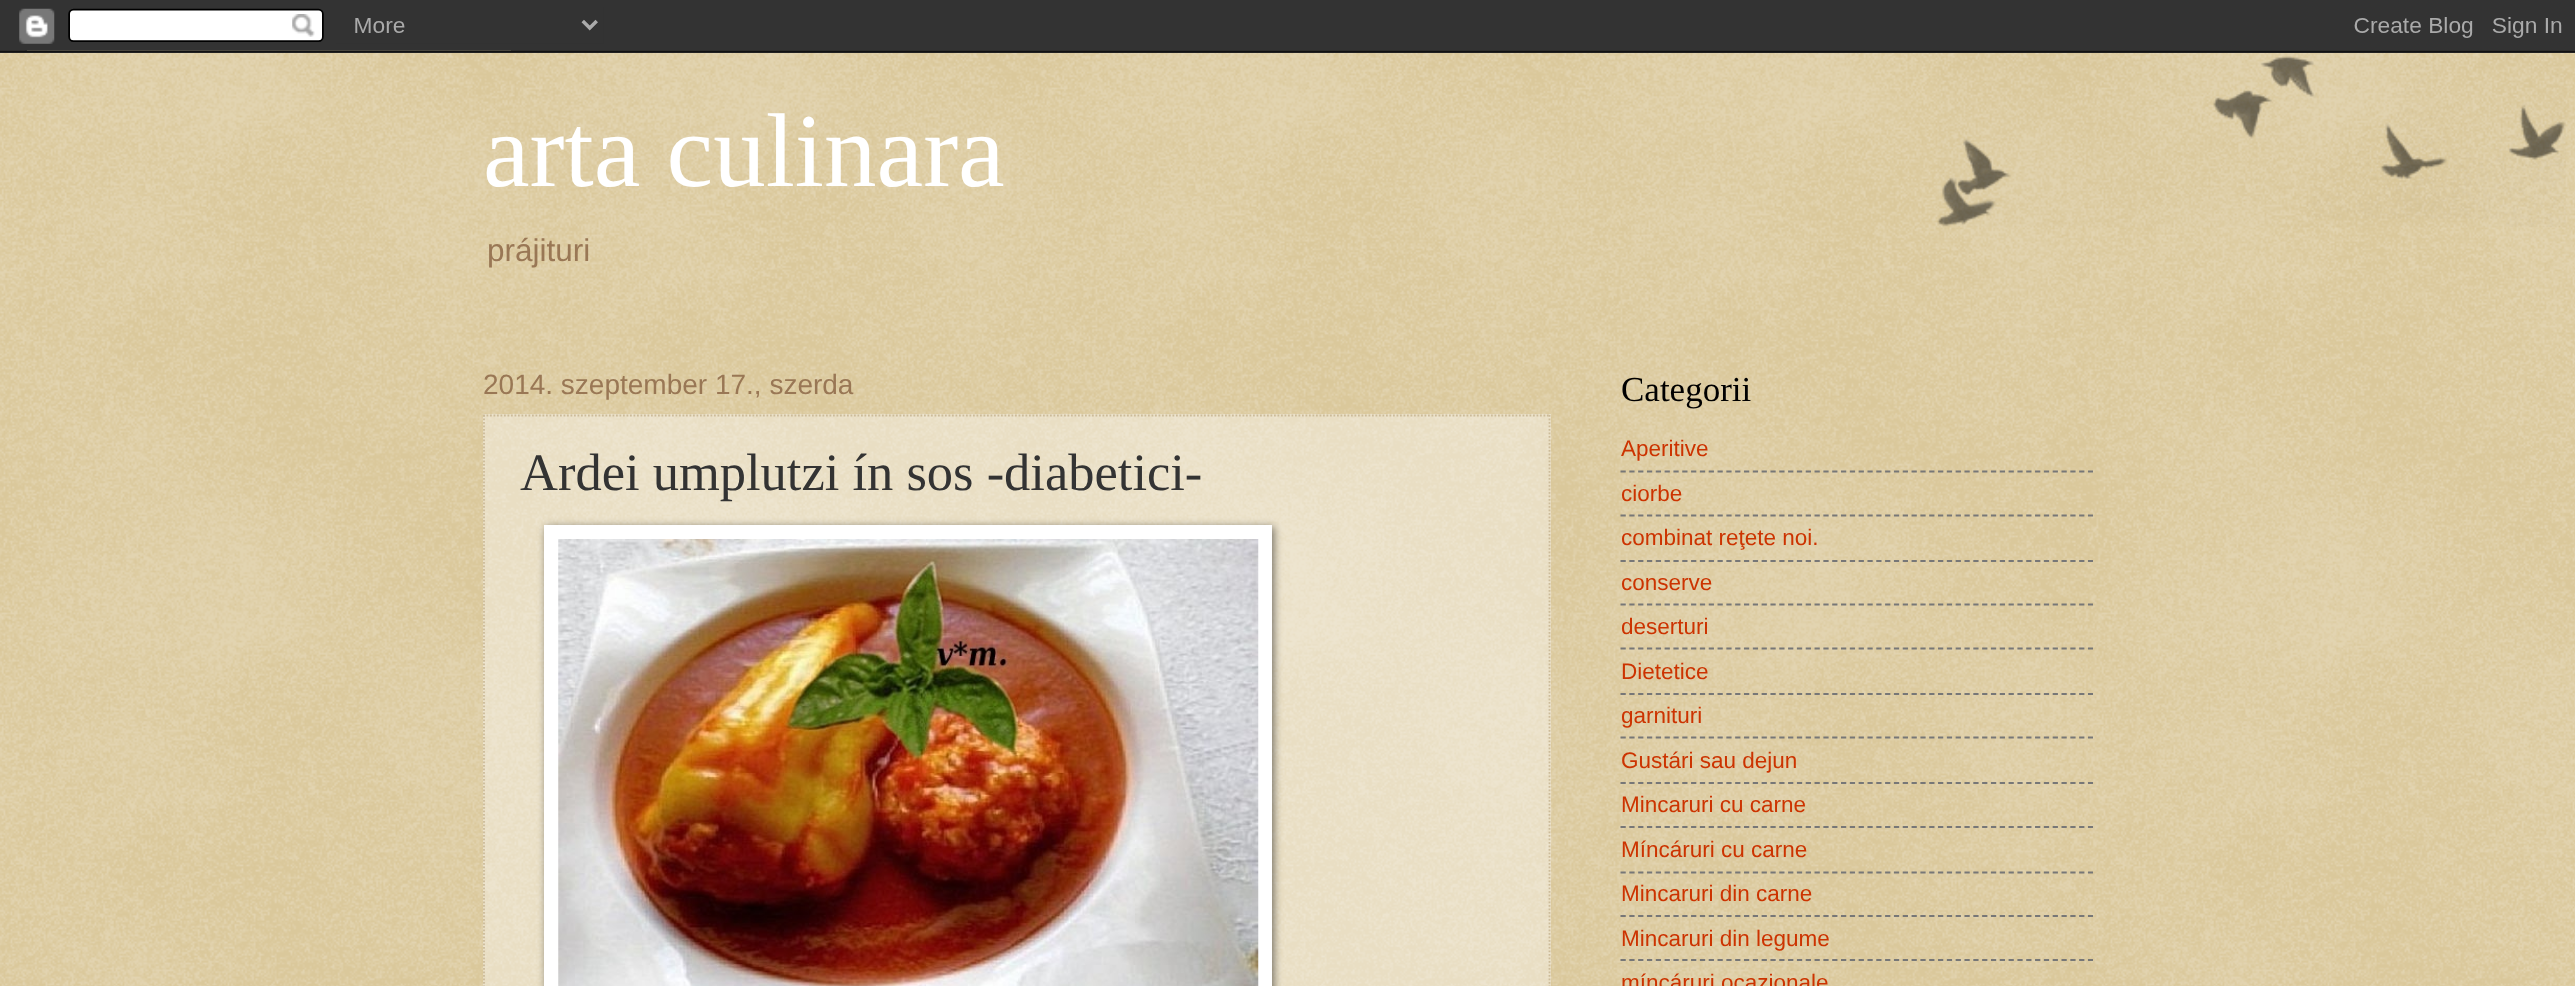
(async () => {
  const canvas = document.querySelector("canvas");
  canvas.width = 2575;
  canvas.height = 986;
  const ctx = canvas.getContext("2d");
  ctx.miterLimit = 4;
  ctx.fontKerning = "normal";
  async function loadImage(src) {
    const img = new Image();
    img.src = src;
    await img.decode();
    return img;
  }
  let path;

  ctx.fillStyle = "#c0a154";
  ctx.fillRect(0, 0, 2575, 986);
  ctx.drawImage(await loadImage("img/1.png"), 0, 50, 2575, 936);
  ctx.drawImage(await loadImage("img/2.png"), 0, 0, 2575, 53);
  ctx.fillStyle = "rgba(255, 255, 255, 0.4)";
  ctx.fillRect(483, 414, 1068, 572);
  path = new Path2D("M483 415.5H1550.5");
  ctx.strokeStyle = "#ccbb99";
  ctx.lineWidth = 1.8;
  ctx.setLineDash([1.75, 1.75]);
  ctx.stroke(path);
  path = new Path2D("M1549.5 415V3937.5");
  ctx.stroke(path);
  path = new Path2D("M484 415V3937.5");
  ctx.stroke(path);
  ctx.fillStyle = "rgba(0, 0, 0, 0.5)";
  ctx.filter = "blur(4.5px)";
  ctx.beginPath();
  ctx.rect(546, 527, 728, 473);
  ctx.fill();
  ctx.filter = "none";
  ctx.fillStyle = "#ffffff";
  ctx.fillRect(544, 525, 728, 461);
  ctx.drawImage(await loadImage("img/3.png"), 558, 539, 701, 447);
  path = new Path2D("M1620.5 471.5H2093");
  ctx.strokeStyle = "#777777";
  ctx.setLineDash([5.25, 3.57]);
  ctx.stroke(path);
  path = new Path2D("M1620.5 515.5H2093");
  ctx.stroke(path);
  path = new Path2D("M1620.5 561H2093");
  ctx.stroke(path);
  path = new Path2D("M1620.5 604.5H2093");
  ctx.stroke(path);
  path = new Path2D("M1620.5 648.5H2093");
  ctx.stroke(path);
  path = new Path2D("M1620.5 694H2093");
  ctx.stroke(path);
  path = new Path2D("M1620.5 737.5H2093");
  ctx.stroke(path);
  path = new Path2D("M1620.5 783H2093");
  ctx.stroke(path);
  path = new Path2D("M1620.5 827H2093");
  ctx.stroke(path);
  path = new Path2D("M1620.5 872.5H2093");
  ctx.stroke(path);
  path = new Path2D("M1620.5 916H2093");
  ctx.stroke(path);
  path = new Path2D("M1620.5 960H2093");
  ctx.stroke(path);
  ctx.drawImage(await loadImage("img/4.png"), 1937, 56, 629, 171);
  ctx.font = "105px Liberation Serif";
  ctx.fillText("arta culinara", 483, 186);
  ctx.font = "31.5px Liberation Sans";
  ctx.fillStyle = "#997755";
  ctx.fillText("prájituri", 487, 261);
  ctx.font = "28px Liberation Sans";
  ctx.fillText("2014. szeptember 17., szerda", 483, 394);
  ctx.font = "52.5px Liberation Serif";
  ctx.fillStyle = "#333333";
  ctx.fillText("Ardei umplutzi ín sos -diabetici-", 520, 490);
  ctx.font = "35px Liberation Serif";
  ctx.fillStyle = "#000000";
  ctx.fillText("Categorii", 1621, 401);
  ctx.font = "22.5px Liberation Sans";
  ctx.fillStyle = "#cc3300";
  for (const [text, x, y] of [
    ["Aperitive", 1621, 456],
    ["ciorbe", 1621, 501],
    ["combinat reţete noi.", 1621, 545],
    ["conserve", 1621, 590],
    ["deserturi", 1621, 634],
    ["Dietetice", 1621, 679],
    ["garnituri", 1621, 723],
    ["Gustári sau dejun", 1621, 768],
    ["Mincaruri cu carne", 1621, 812],
    ["Míncáruri cu carne", 1621, 857],
    ["Mincaruri din carne", 1621, 901],
    ["Mincaruri din legume", 1621, 946],
    ["míncáruri ocazionale", 1621, 990],
  ]) {
    ctx.fillText(text, x, y);
  }
})();
